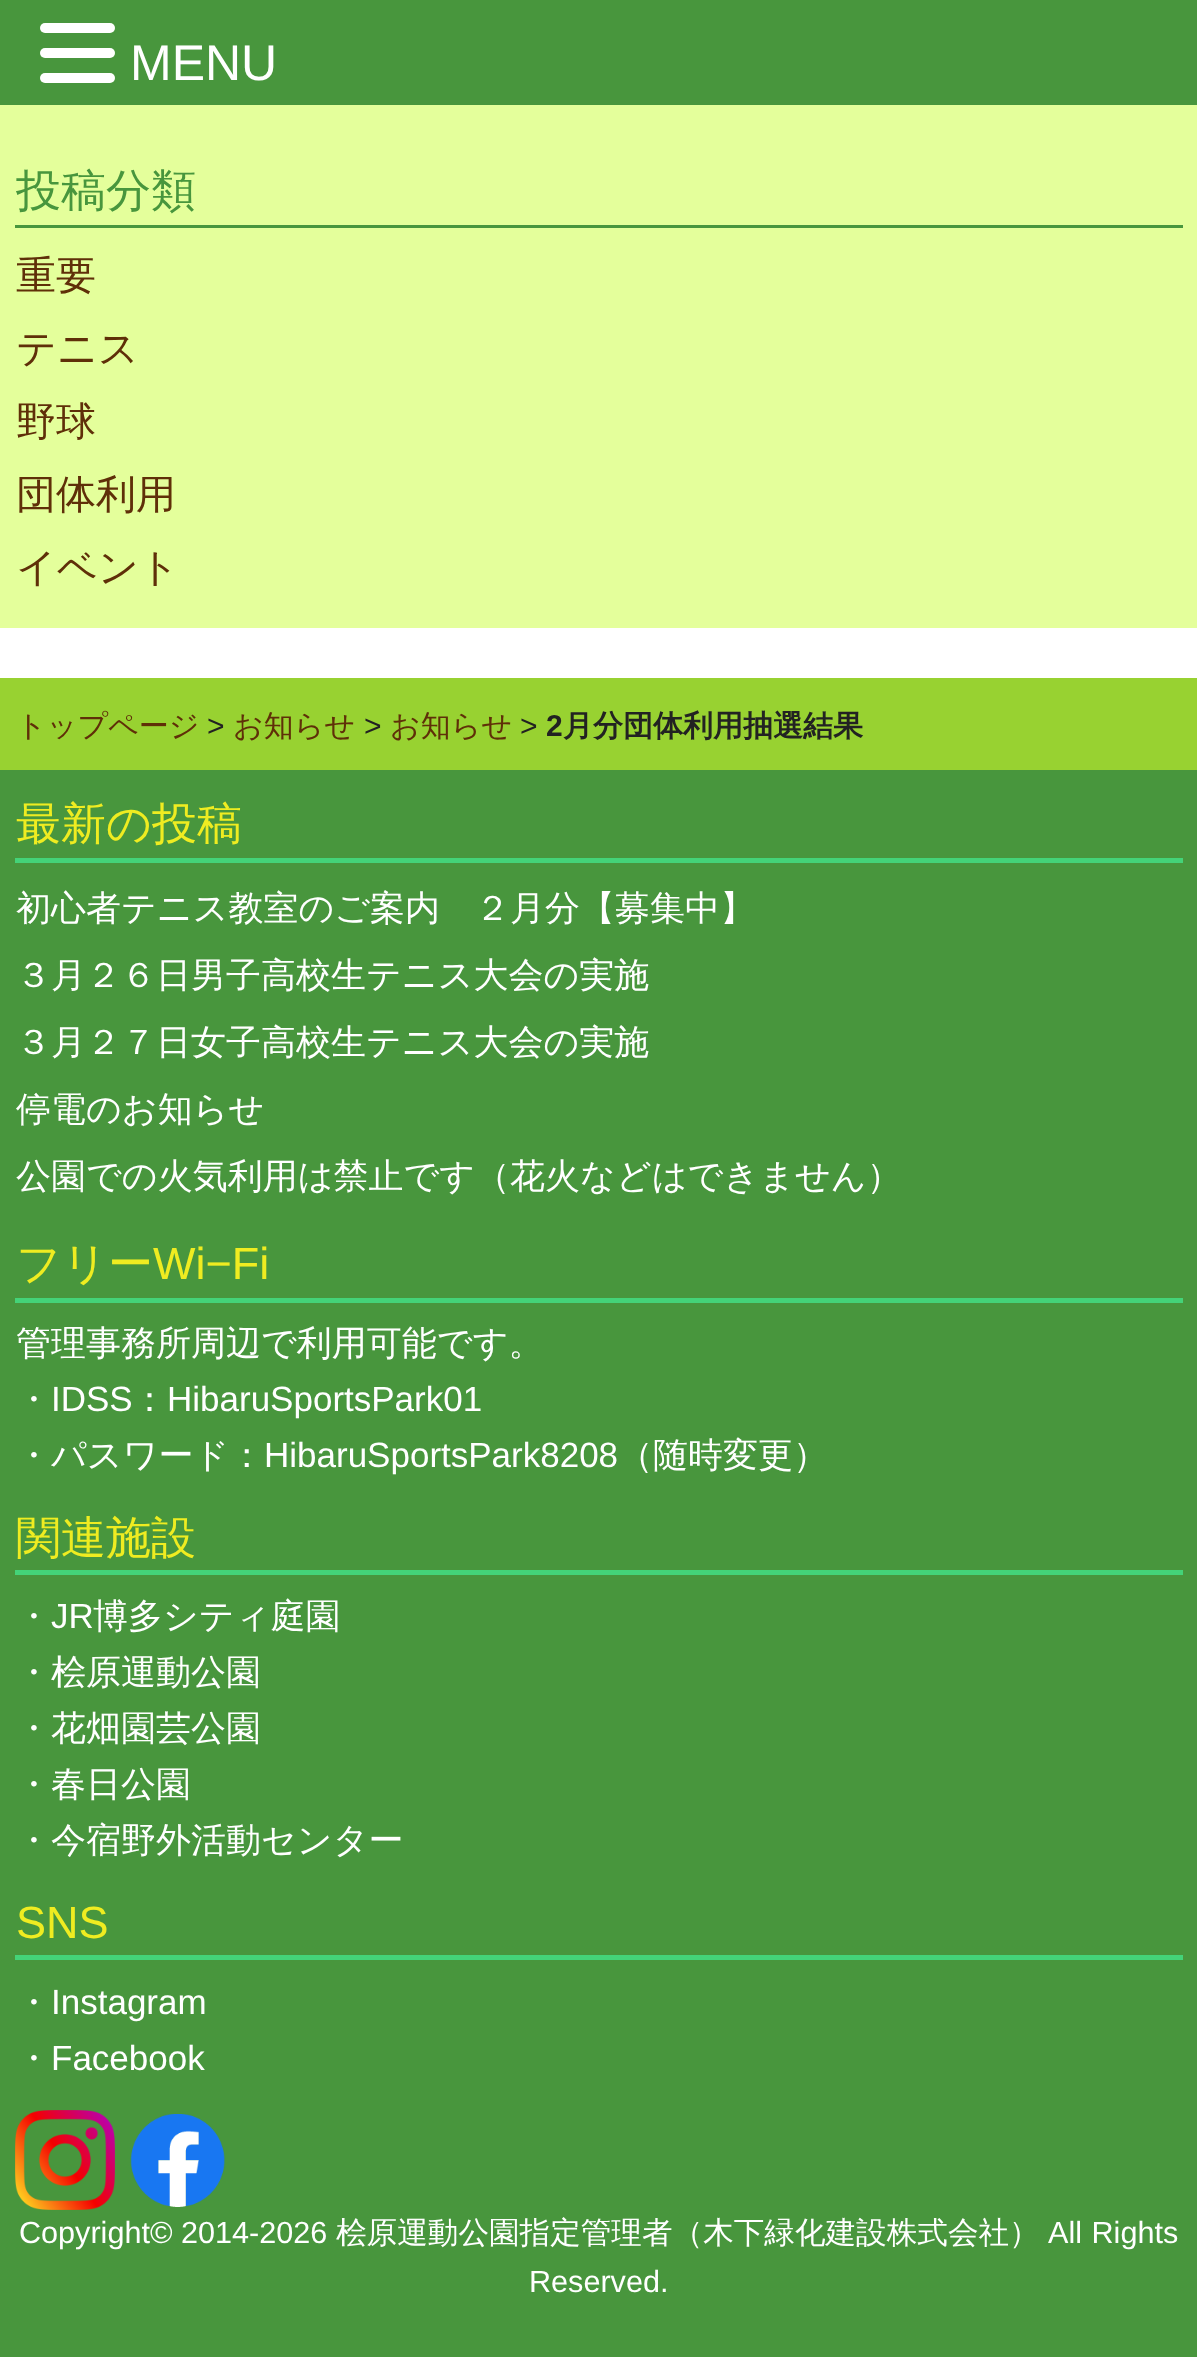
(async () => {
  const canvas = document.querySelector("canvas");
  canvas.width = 1197;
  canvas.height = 2357;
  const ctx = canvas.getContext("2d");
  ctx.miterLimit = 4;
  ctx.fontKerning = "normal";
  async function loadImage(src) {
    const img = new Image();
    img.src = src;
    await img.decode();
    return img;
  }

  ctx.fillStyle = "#ffffff";
  ctx.fillRect(0, 0, 1197, 2357);
  ctx.fillStyle = "#48963d";
  ctx.fillRect(0, 0, 1197, 105);
  ctx.fillStyle = "#ffffff";
  ctx.beginPath();
  ctx.roundRect(40, 23, 75, 10, 5);
  ctx.fill();
  ctx.beginPath();
  ctx.roundRect(40, 48, 75, 10, 5);
  ctx.fill();
  ctx.beginPath();
  ctx.roundRect(40, 73, 75, 10, 5);
  ctx.fill();
  for (const [x, y, w, h, color] of [
    [0, 105, 1197, 523, "#e4ff9b"],
    [15, 225, 1168, 3, "#48963d"],
    [0, 678, 1197, 92, "#98d231"],
    [0, 770, 1197, 1587, "#48963d"],
    [15, 858, 1168, 5, "#44d378"],
    [15, 1298, 1168, 5, "#44d378"],
    [15, 1570, 1168, 5, "#44d378"],
    [15, 1955, 1168, 5, "#44d378"],
  ]) {
    ctx.fillStyle = color;
    ctx.fillRect(x, y, w, h);
  }
  ctx.drawImage(await loadImage("img/1.png"), 15, 2110, 100, 100);
  ctx.drawImage(await loadImage("img/2.png"), 130, 2114, 95, 93);
  ctx.font = "50px Liberation Sans";
  ctx.fillStyle = "#ffffff";
  ctx.fillText("MENU", 130, 80);
  ctx.font = "500 45px WenQuanYi Zen Hei";
  ctx.fillStyle = "#48963d";
  ctx.fillText("投稿分類", 16, 206);
  ctx.font = "500 40px WenQuanYi Zen Hei";
  ctx.fillStyle = "#5f2f08";
  for (const [text, x, y] of [
    ["重要", 16, 289],
    ["テニス", 16, 362],
    ["野球", 16, 435],
    ["団体利用", 16, 508],
    ["イベント", 16, 581],
  ]) {
    ctx.fillText(text, x, y);
  }
  ctx.font = "500 30px WenQuanYi Zen Hei";
  ctx.fillText("トップページ", 16, 736);
  ctx.font = "30px Liberation Sans";
  ctx.fillStyle = "#222222";
  ctx.fillText(">", 207, 736);
  ctx.font = "500 30px WenQuanYi Zen Hei";
  ctx.fillStyle = "#5f2f08";
  ctx.fillText("お知らせ", 233, 736);
  ctx.font = "30px Liberation Sans";
  ctx.fillStyle = "#222222";
  ctx.fillText(">", 364, 736);
  ctx.font = "500 30px WenQuanYi Zen Hei";
  ctx.fillStyle = "#5f2f08";
  ctx.fillText("お知らせ", 390, 736);
  ctx.font = "30px Liberation Sans";
  ctx.fillStyle = "#222222";
  ctx.fillText(">", 520, 736);
  ctx.font = "bold 30px Liberation Sans";
  ctx.fillText("2", 546, 736);
  ctx.font = "bold 30px WenQuanYi Zen Hei";
  ctx.fillText("月分団体利用抽選結果", 563, 736);
  ctx.font = "500 45px WenQuanYi Zen Hei";
  ctx.fillStyle = "#efec21";
  ctx.fillText("最新の投稿", 16, 839);
  ctx.font = "500 35px WenQuanYi Zen Hei";
  ctx.fillStyle = "#ffffff";
  for (const [text, x, y] of [
    ["初心者テニス教室のご案内　２月分【募集中】", 16, 920],
    ["３月２６日男子高校生テニス大会の実施", 16, 987],
    ["３月２７日女子高校生テニス大会の実施", 16, 1054],
    ["停電のお知らせ", 16, 1121],
    ["公園での火気利用は禁止です（花火などはできません）", 16, 1188],
  ]) {
    ctx.fillText(text, x, y);
  }
  ctx.font = "500 45px WenQuanYi Zen Hei";
  ctx.fillStyle = "#efec21";
  ctx.fillText("フリー", 16, 1279);
  ctx.font = "45px Liberation Sans";
  ctx.fillText("Wi−Fi", 153, 1279);
  ctx.font = "500 35px WenQuanYi Zen Hei";
  ctx.fillStyle = "#ffffff";
  ctx.fillText("管理事務所周辺で利用可能です。", 16, 1355);
  ctx.fillText("・", 16, 1411);
  ctx.font = "35px Liberation Sans";
  ctx.fillText("IDSS", 51, 1411);
  ctx.font = "500 35px WenQuanYi Zen Hei";
  ctx.fillText("：", 132, 1411);
  ctx.font = "35px Liberation Sans";
  ctx.fillText("HibaruSportsPark01", 167, 1411);
  ctx.font = "500 35px WenQuanYi Zen Hei";
  ctx.fillText("・パスワード：", 16, 1467);
  ctx.font = "35px Liberation Sans";
  ctx.fillText("HibaruSportsPark8208", 264, 1467);
  ctx.font = "500 35px WenQuanYi Zen Hei";
  ctx.fillText("（随時変更）", 618, 1467);
  ctx.font = "500 45px WenQuanYi Zen Hei";
  ctx.fillStyle = "#efec21";
  ctx.fillText("関連施設", 16, 1553);
  ctx.font = "500 35px WenQuanYi Zen Hei";
  ctx.fillStyle = "#ffffff";
  ctx.fillText("・", 16, 1628);
  ctx.font = "35px Liberation Sans";
  ctx.fillText("JR", 51, 1628);
  ctx.font = "500 35px WenQuanYi Zen Hei";
  for (const [text, x, y] of [
    ["博多シティ庭園", 93, 1628],
    ["・桧原運動公園", 16, 1684],
    ["・花畑園芸公園", 16, 1740],
    ["・春日公園", 16, 1796],
    ["・今宿野外活動センター", 16, 1852],
  ]) {
    ctx.fillText(text, x, y);
  }
  ctx.font = "45px Liberation Sans";
  ctx.fillStyle = "#efec21";
  ctx.fillText("SNS", 16, 1938);
  ctx.font = "500 35px WenQuanYi Zen Hei";
  ctx.fillStyle = "#ffffff";
  ctx.fillText("・", 16, 2014);
  ctx.font = "35px Liberation Sans";
  ctx.fillText("Instagram", 51, 2014);
  ctx.font = "500 35px WenQuanYi Zen Hei";
  ctx.fillText("・", 16, 2070);
  ctx.font = "35px Liberation Sans";
  ctx.fillText("Facebook", 51, 2070);
  ctx.font = "30.6px Liberation Sans";
  ctx.fillText("Copyright© 2014-2026", 19, 2243);
  ctx.font = "500 30.6px WenQuanYi Zen Hei";
  ctx.fillText("桧原運動公園指定管理者（木下緑化建設株式会社）", 336, 2243);
  ctx.wordSpacing = "1px";
  ctx.font = "30.6px Liberation Sans";
  ctx.fillText("All Rights", 1048, 2243);
  ctx.wordSpacing = "0px";
  ctx.fillText("Reserved.", 529, 2292);
})();
